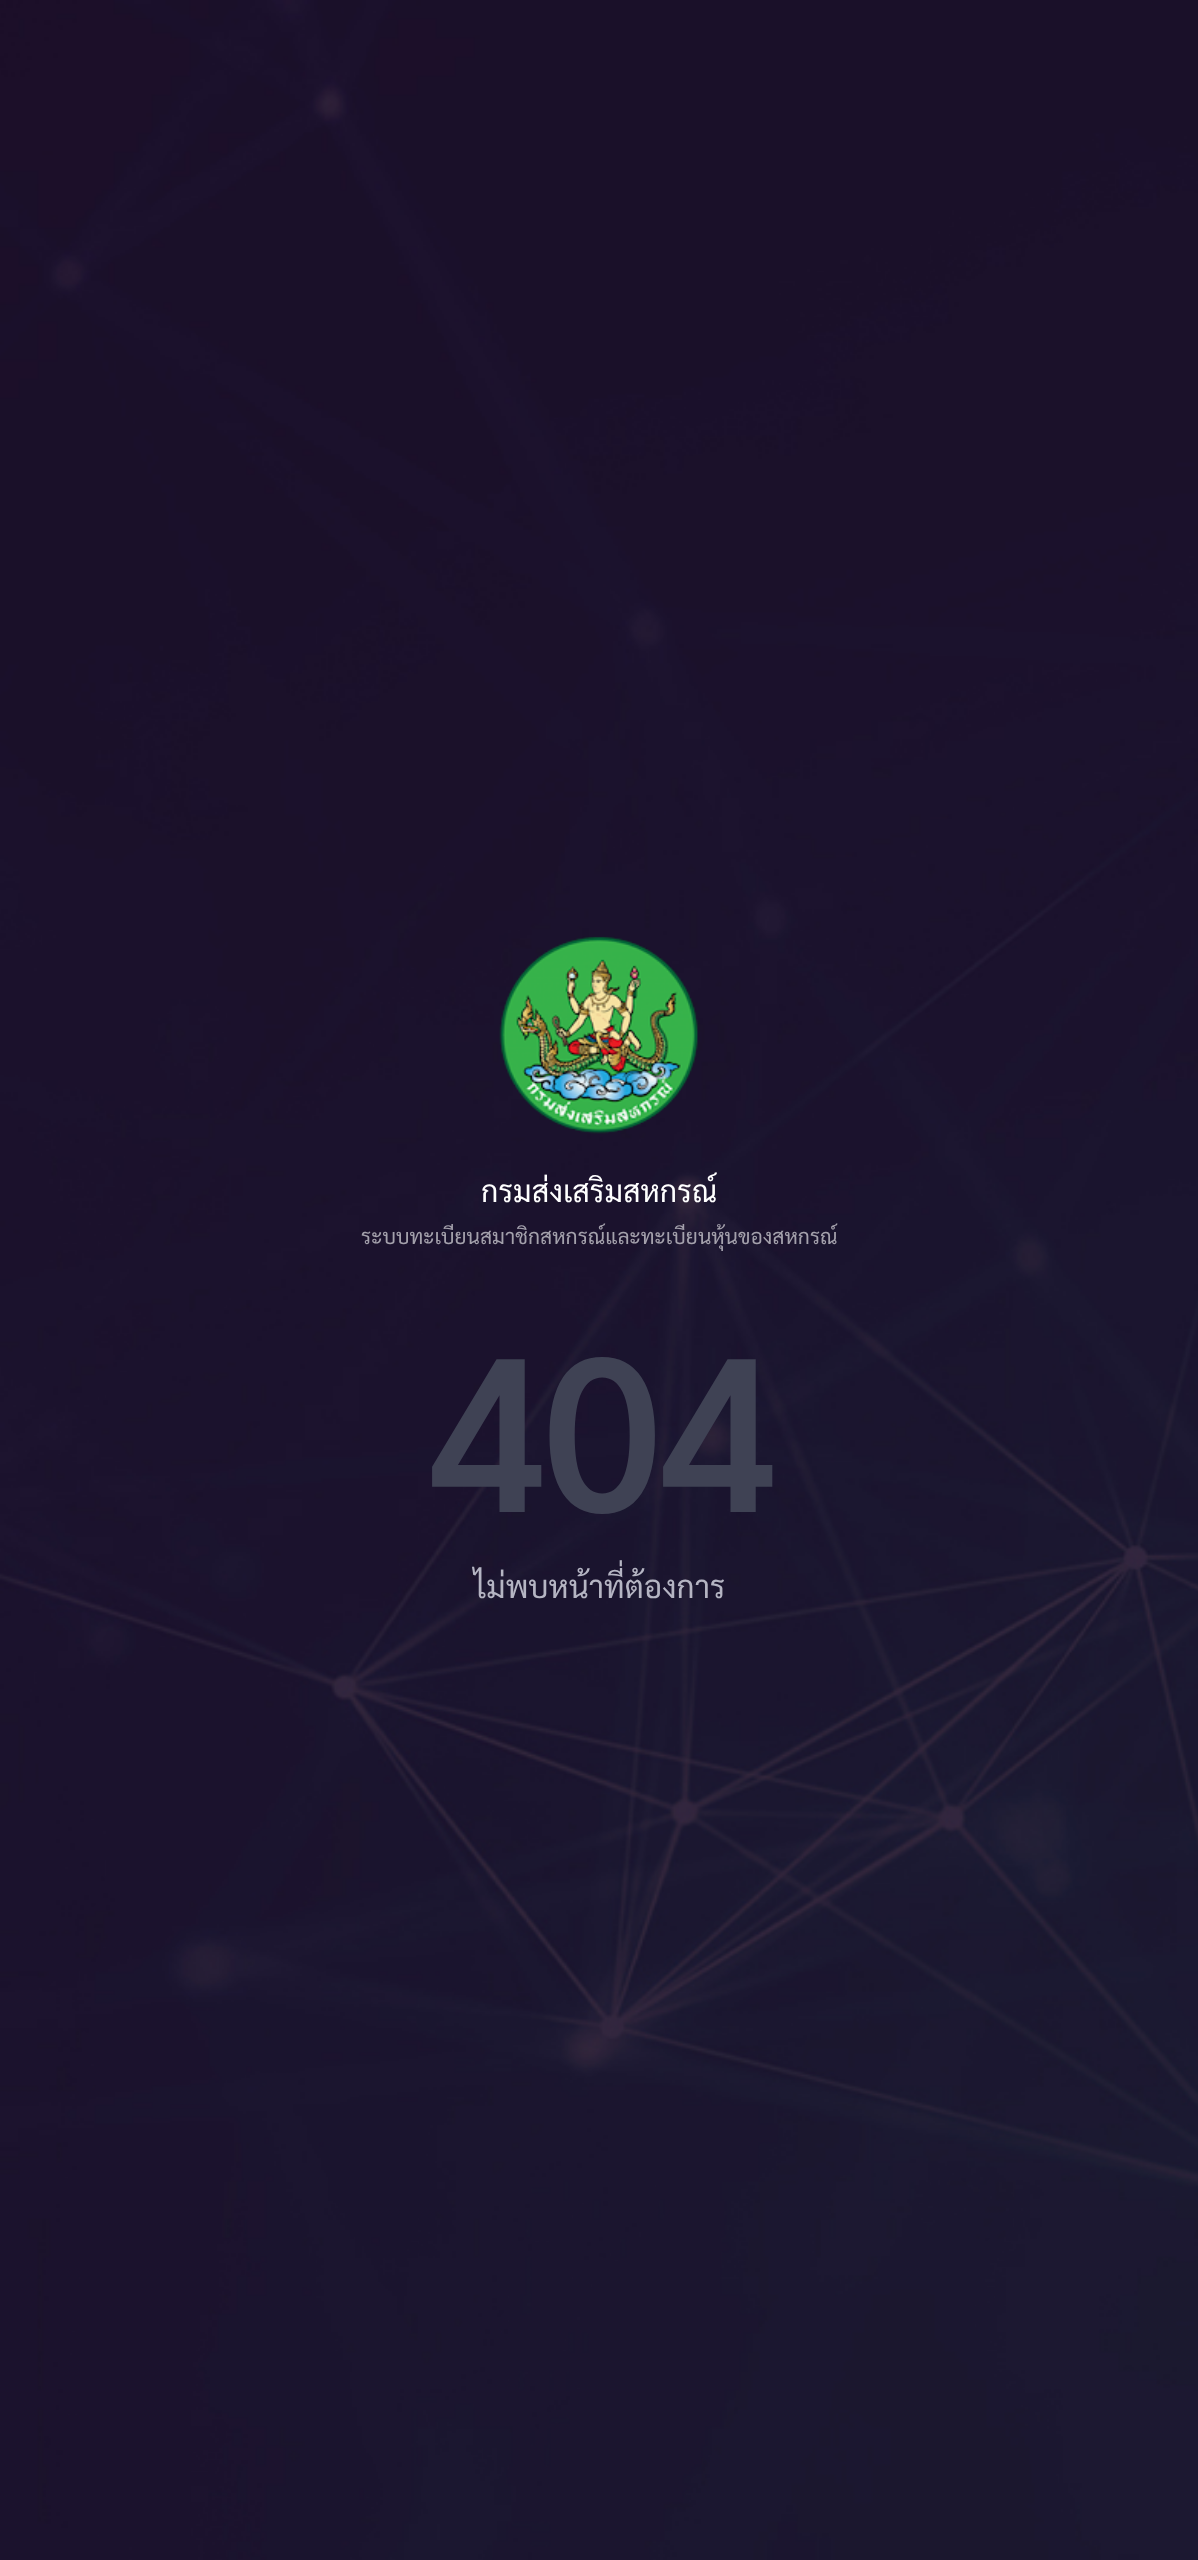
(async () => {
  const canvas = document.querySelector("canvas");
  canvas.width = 1198;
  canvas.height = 2560;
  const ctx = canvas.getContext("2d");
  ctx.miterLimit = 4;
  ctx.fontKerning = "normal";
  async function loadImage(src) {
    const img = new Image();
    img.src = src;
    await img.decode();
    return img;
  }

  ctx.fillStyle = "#ffffff";
  ctx.fillRect(0, 0, 1198, 2560);
  ctx.drawImage(await loadImage("img/1.png"), 0, 0, 1198, 2560);
  ctx.drawImage(await loadImage("img/2.png"), 499, 936, 199, 198);
  ctx.font = "30.25px Sarabun";
  ctx.fillText("กรมส่งเสริมสหกรณ์", 481, 1202);
  ctx.font = "21px Sarabun";
  ctx.fillStyle = "#a4a1ac";
  ctx.fillText("ระบบทะเบียนสมาชิกสหกรณ์และทะเบียนหุ้นของสหกรณ์", 361, 1244);
  ctx.font = "bold 210px Sarabun";
  ctx.fillStyle = "#3f4254";
  ctx.fillText("404", 426, 1512);
  ctx.font = "31.5px Sarabun";
  ctx.fillStyle = "#b5b5c3";
  ctx.fillText("ไม่พบหน้าที่ต้องการ", 474, 1598);
})();
